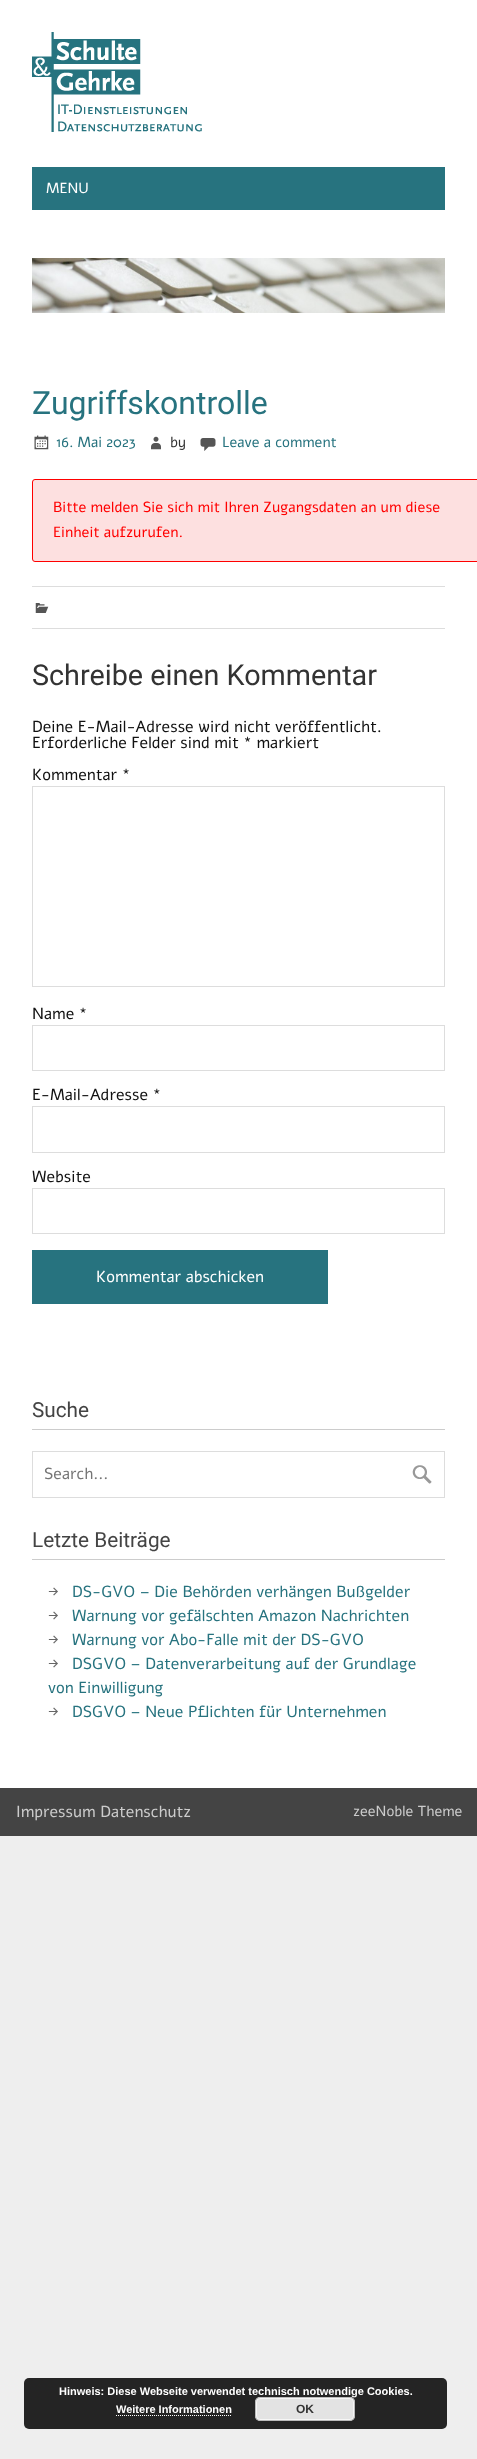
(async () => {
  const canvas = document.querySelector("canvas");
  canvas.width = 477;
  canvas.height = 2459;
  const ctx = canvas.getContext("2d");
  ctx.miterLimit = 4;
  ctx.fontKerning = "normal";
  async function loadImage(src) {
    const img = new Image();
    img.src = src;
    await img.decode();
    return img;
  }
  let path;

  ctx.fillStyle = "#eeeeee";
  ctx.fillRect(0, 0, 477, 2459);
  ctx.fillStyle = "#ffffff";
  ctx.fillRect(0, 0, 477, 1788);
  ctx.drawImage(await loadImage("img/1.png"), 32, 32, 170, 100);
  ctx.fillStyle = "#27737f";
  ctx.fillRect(32, 167, 413, 43);
  ctx.drawImage(await loadImage("img/2.png"), 32, 258, 413, 55);
  ctx.drawImage(await loadImage("img/3.png"), 34, 435, 15, 15);
  ctx.drawImage(await loadImage("img/4.png"), 151, 436, 10, 14);
  ctx.drawImage(await loadImage("img/5.png"), 200, 438, 16, 13);
  ctx.fillStyle = "#fde0e0";
  ctx.beginPath();
  ctx.roundRect(32.5, 479.5, 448, 82, 2.5);
  ctx.fill();
  ctx.strokeStyle = "#ff0000";
  ctx.stroke();
  ctx.fillStyle = "#dddddd";
  ctx.fillRect(32, 586, 413, 1);
  ctx.fillRect(32, 628, 413, 1);
  ctx.drawImage(await loadImage("img/6.png"), 35, 603, 14, 10);
  ctx.strokeStyle = "#dddddd";
  ctx.strokeRect(32.5, 786.5, 412, 200);
  ctx.strokeRect(32.5, 1025.5, 412, 45);
  ctx.strokeRect(32.5, 1106.5, 412, 46);
  ctx.strokeRect(32.5, 1188.5, 412, 45);
  ctx.fillStyle = "#27737f";
  ctx.fillRect(32, 1250, 296, 54);
  ctx.fillStyle = "#cccccc";
  ctx.fillRect(32, 1429, 413, 1);
  ctx.strokeRect(32.5, 1451.5, 412, 46);
  ctx.drawImage(await loadImage("img/7.png"), 412, 1465, 20, 19);
  ctx.fillRect(32, 1559, 413, 1);
  ctx.drawImage(await loadImage("img/8.png"), 48, 1587, 10, 9);
  ctx.drawImage(await loadImage("img/8.png"), 48, 1611, 10, 9);
  ctx.drawImage(await loadImage("img/8.png"), 48, 1635, 10, 9);
  ctx.drawImage(await loadImage("img/8.png"), 48, 1659, 10, 9);
  ctx.drawImage(await loadImage("img/8.png"), 48, 1707, 10, 9);
  ctx.fillStyle = "#444444";
  ctx.fillRect(0, 1788, 477, 48);
  ctx.fillStyle = "#242424";
  ctx.beginPath();
  ctx.roundRect(24, 2378, 423, 51, 5);
  ctx.fill();
  path = new Path2D("M116 2415.5H232");
  ctx.strokeStyle = "#ffffff";
  ctx.setLineDash([1, 1]);
  ctx.stroke(path);
  ctx.font = "14.5px Alef";
  ctx.fillStyle = "#ffffff";
  ctx.fillText("MENU", 46, 193);
  ctx.font = "32px Roboto";
  ctx.fillStyle = "#27737f";
  ctx.fillText("Zugriffskontrolle", 32, 414);
  ctx.font = "14.5px Alef";
  ctx.fillText("16. Mai 2023", 56, 447);
  ctx.fillStyle = "#333333";
  ctx.fillText("by", 170, 447);
  ctx.fillStyle = "#27737f";
  ctx.fillText("Leave a comment", 222, 447);
  ctx.font = "14.7px Alef";
  ctx.fillStyle = "#ff0000";
  ctx.fillText("Bitte melden Sie sich mit Ihren Zugangsdaten an um diese", 53, 512);
  ctx.fillText("Einheit aufzurufen.", 53, 537);
  ctx.font = "28.75px Roboto";
  ctx.fillStyle = "#333333";
  ctx.fillText("Schreibe einen Kommentar", 32, 685);
  ctx.font = "16px Alef";
  ctx.fillStyle = "#111111";
  for (const [text, x, y] of [
    ["Deine E-Mail-Adresse wird nicht veröffentlicht.", 32, 732],
    ["Erforderliche Felder sind mit * markiert", 32, 748],
    ["Kommentar *", 32, 780],
    ["Name *", 32, 1019],
    ["E-Mail-Adresse *", 32, 1100],
    ["Website", 32, 1182],
  ]) {
    ctx.fillText(text, x, y);
  }
  ctx.fillStyle = "#ffffff";
  ctx.fillText("Kommentar abschicken", 96, 1282);
  ctx.font = "20.75px Roboto";
  ctx.fillStyle = "#444444";
  ctx.fillText("Suche", 32, 1417);
  ctx.font = "16px Alef";
  ctx.fillStyle = "#757575";
  ctx.fillText("Search...", 44, 1479);
  ctx.font = "20.75px Roboto";
  ctx.fillStyle = "#444444";
  ctx.fillText("Letzte Beiträge", 32, 1547);
  ctx.font = "16px Alef";
  ctx.fillStyle = "#27737f";
  for (const [text, x, y] of [
    ["DS-GVO – Die Behörden verhängen Bußgelder", 72, 1597],
    ["Warnung vor gefälschten Amazon Nachrichten", 72, 1621],
    ["Warnung vor Abo-Falle mit der DS-GVO", 72, 1645],
    ["DSGVO – Datenverarbeitung auf der Grundlage", 72, 1669],
    ["von Einwilligung", 48, 1693],
    ["DSGVO – Neue Pflichten für Unternehmen", 72, 1717],
  ]) {
    ctx.fillText(text, x, y);
  }
  ctx.fillStyle = "#cccccc";
  ctx.fillText("Impressum Datenschutz", 16, 1817);
  ctx.font = "14.5px Alef";
  ctx.fillText("zeeNoble Theme", 353, 1816);
  ctx.font = "bold 11px Liberation Sans";
  ctx.fillStyle = "#ffffff";
  ctx.fillText("Hinweis: Diese Webseite verwendet technisch notwendige Cookies.", 59, 2395);
  ctx.fillText("Weitere Informationen", 116, 2413);
  ctx.fillStyle = "#e3e3e3";
  ctx.beginPath();
  ctx.roundRect(255, 2397, 100, 24, 5);
  ctx.fill();
  ctx.beginPath();
  ctx.roundRect(256.5, 2398.5, 97, 21, 3.5);
  ctx.strokeStyle = "#f6f6f6";
  ctx.setLineDash([]);
  ctx.stroke();
  ctx.beginPath();
  ctx.roundRect(255.5, 2397.5, 99, 23, 4.5);
  ctx.strokeStyle = "#bbbbbb";
  ctx.stroke();
  ctx.font = "bold 12px Liberation Sans";
  ctx.fillStyle = "#333333";
  ctx.fillText("OK", 296, 2413);
})();
